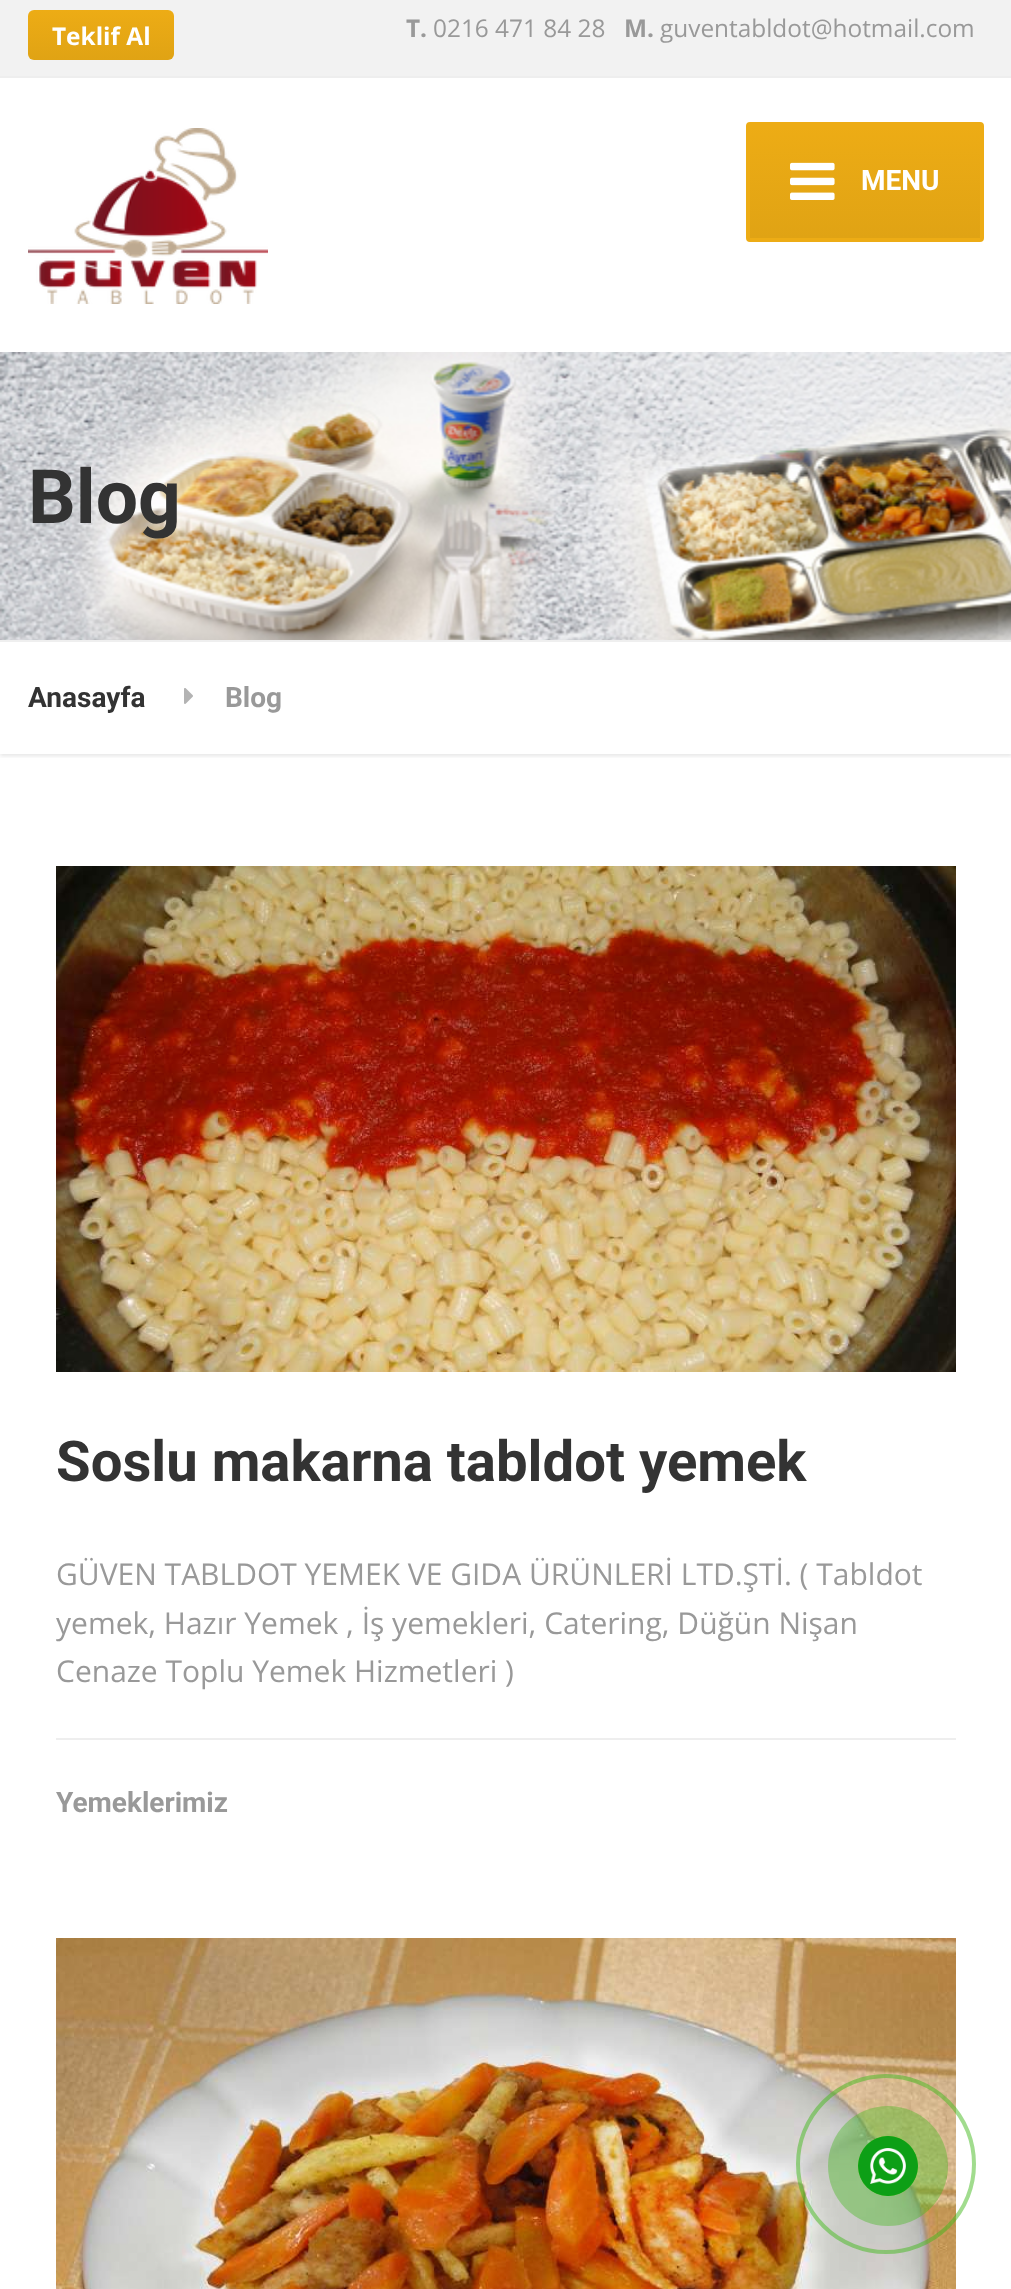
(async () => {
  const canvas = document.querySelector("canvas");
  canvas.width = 1011;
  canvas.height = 2289;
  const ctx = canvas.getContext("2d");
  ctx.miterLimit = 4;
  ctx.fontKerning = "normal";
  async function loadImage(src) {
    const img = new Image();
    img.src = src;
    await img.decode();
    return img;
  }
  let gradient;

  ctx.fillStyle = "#ffffff";
  ctx.fillRect(0, 0, 1011, 2289);
  ctx.fillStyle = "#f2f2f2";
  ctx.fillRect(0, 0, 1011, 76);
  ctx.fillStyle = "#eeeeee";
  ctx.fillRect(0, 76, 1011, 2);
  gradient = ctx.createLinearGradient(101, 10, 101, 60);
  gradient.addColorStop(0, "#edac15");
  gradient.addColorStop(1, "#e0a314");
  ctx.fillStyle = gradient;
  ctx.beginPath();
  ctx.roundRect(28, 10, 146, 50, 6);
  ctx.fill();
  ctx.drawImage(await loadImage("img/1.png"), 28, 128, 240, 176);
  gradient = ctx.createLinearGradient(865, 126, 865, 238);
  gradient.addColorStop(0, "#edac15");
  gradient.addColorStop(1, "#e0a314");
  ctx.fillStyle = gradient;
  ctx.fillRect(750, 126, 230, 112);
  ctx.beginPath();
  ctx.roundRect(748, 124, 234, 116, 2);
  ctx.strokeStyle = "#edac15";
  ctx.lineWidth = 4;
  ctx.stroke();
  ctx.drawImage(await loadImage("img/2.png"), 790, 162, 45, 38);
  ctx.drawImage(await loadImage("img/3.png"), 0, 352, 1011, 288);
  ctx.fillStyle = "#efefef";
  ctx.fillRect(0, 640, 1011, 2);
  ctx.save();
  ctx.beginPath();
  ctx.rect(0, 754, 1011, 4);
  ctx.clip();
  ctx.fillStyle = "rgba(0, 0, 0, 0.1)";
  ctx.filter = "blur(2px)";
  ctx.beginPath();
  ctx.rect(0, 644, 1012, 112);
  ctx.fill();
  ctx.filter = "none";
  ctx.restore();
  ctx.drawImage(await loadImage("img/4.png"), 184, 688, 9, 16);
  ctx.drawImage(await loadImage("img/5.png"), 56, 866, 900, 506);
  ctx.fillStyle = "#eeeeee";
  ctx.fillRect(56, 1738, 900, 2);
  ctx.drawImage(await loadImage("img/6.png"), 56, 1938, 900, 351);
  ctx.beginPath();
  ctx.arc(886, 2164, 88, 0, Math.PI * 2);
  ctx.strokeStyle = "rgba(67, 185, 30, 0.5)";
  ctx.stroke();
  ctx.fillStyle = "rgba(67, 185, 30, 0.4)";
  ctx.beginPath();
  ctx.arc(888, 2166, 60, 0, Math.PI * 2);
  ctx.fill();
  ctx.fillStyle = "#43b91e";
  ctx.beginPath();
  ctx.arc(888, 2166, 30, 0, Math.PI * 2);
  ctx.fill();
  ctx.drawImage(await loadImage("img/7.png"), 858, 2136, 60, 60);
  ctx.font = "bold 24.4px Open Sans";
  ctx.fillStyle = "#ffffff";
  ctx.fillText("Teklif Al", 52, 45);
  ctx.fillStyle = "#999999";
  ctx.fillText("T.", 406, 37);
  ctx.font = "24.4px Open Sans";
  ctx.fillText("0216 471 84 28", 433, 37);
  ctx.font = "bold 24.4px Open Sans";
  ctx.fillText("M.", 624, 37);
  ctx.font = "24.4px Open Sans";
  ctx.fillText("guventabldot@hotmail.com", 660, 37);
  ctx.font = "bold 28px Roboto";
  ctx.fillStyle = "#ffffff";
  ctx.fillText("MENU", 861, 190);
  ctx.font = "bold 75px Roboto";
  ctx.fillStyle = "#333333";
  ctx.fillText("Blog", 28, 523);
  ctx.font = "bold 28px Roboto";
  ctx.fillText("Anasayfa", 28, 707);
  ctx.fillStyle = "#999999";
  ctx.fillText("Blog", 225, 707);
  ctx.font = "bold 56.25px Roboto";
  ctx.fillStyle = "#333333";
  ctx.fillText("Soslu makarna tabldot yemek", 56, 1481);
  ctx.font = "30px Open Sans";
  ctx.fillStyle = "#999999";
  for (const [text, x, y] of [
    ["GÜVEN TABLDOT YEMEK VE GIDA ÜRÜNLERİ LTD.ŞTİ. ( Tabldot", 56, 1585],
    ["yemek, Hazır Yemek , İş yemekleri, Catering, Düğün Nişan", 56, 1634],
    ["Cenaze Toplu Yemek Hizmetleri )", 56, 1682],
  ]) {
    ctx.fillText(text, x, y);
  }
  ctx.font = "bold 28px Roboto";
  ctx.fillText("Yemeklerimiz", 56, 1812);
})();
